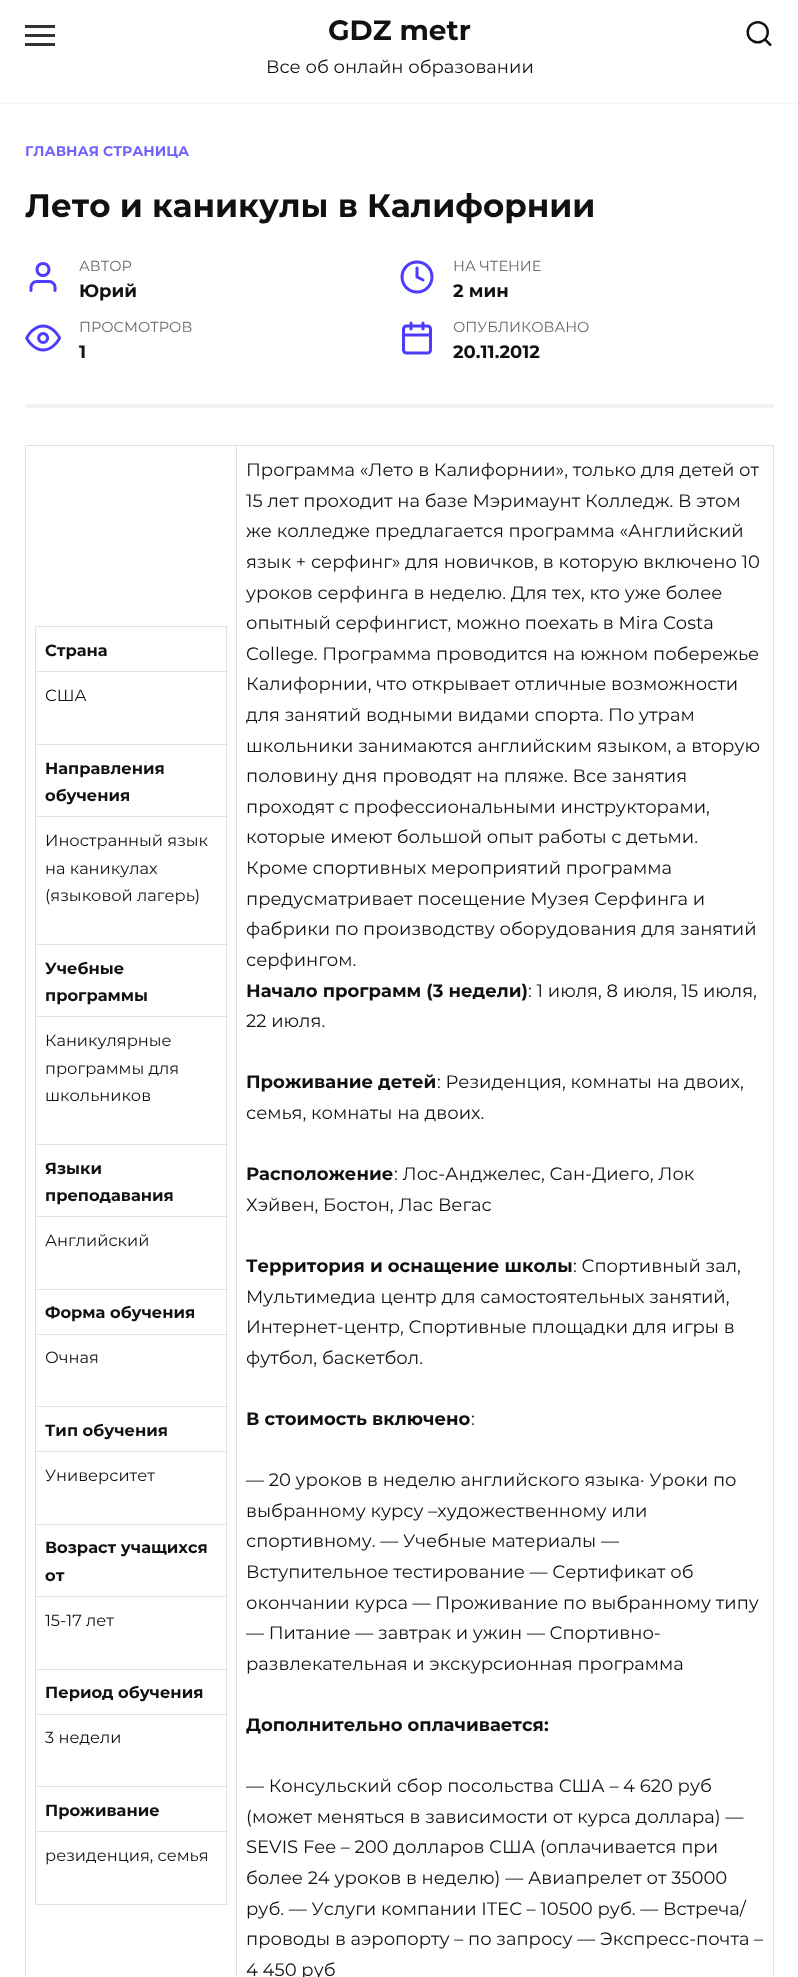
(async () => {
  const canvas = document.querySelector("canvas");
  canvas.width = 798;
  canvas.height = 1977;
  const ctx = canvas.getContext("2d");
  ctx.miterLimit = 4;
  ctx.fontKerning = "none";

  ctx.fillStyle = "#ffffff";
  ctx.fillRect(0, 0, 798, 1977);
  for (const [x, y, w, h, color] of [
    [0, 103, 798, 1, "#f2f5f9"],
    [25, 25, 30, 3, "#333333"],
    [25, 34, 30, 3, "#333333"],
    [25, 43, 30, 3, "#333333"],
    [25, 404, 749, 4, "#f2f2f2"],
    [25, 445, 749, 1, "#dee2e6"],
    [773, 445, 1, 1532, "#dee2e6"],
    [25, 445, 1, 1532, "#dee2e6"],
    [35, 626, 193, 1, "#dee2e6"],
    [226, 626, 1, 1279, "#dee2e6"],
    [35, 1904, 193, 1, "#dee2e6"],
    [35, 626, 1, 1279, "#dee2e6"],
    [35, 671, 193, 1, "#dee2e6"],
    [35, 744, 193, 1, "#dee2e6"],
    [35, 816, 193, 1, "#dee2e6"],
    [35, 944, 193, 1, "#dee2e6"],
    [35, 1016, 193, 1, "#dee2e6"],
    [35, 1144, 193, 1, "#dee2e6"],
    [35, 1216, 193, 1, "#dee2e6"],
    [35, 1289, 193, 1, "#dee2e6"],
    [35, 1334, 193, 1, "#dee2e6"],
    [35, 1406, 193, 1, "#dee2e6"],
    [35, 1451, 193, 1, "#dee2e6"],
    [35, 1524, 193, 1, "#dee2e6"],
    [35, 1596, 193, 1, "#dee2e6"],
    [35, 1669, 193, 1, "#dee2e6"],
    [35, 1714, 193, 1, "#dee2e6"],
    [35, 1786, 193, 1, "#dee2e6"],
    [35, 1831, 193, 1, "#dee2e6"],
    [236, 445, 1, 1532, "#dee2e6"],
  ]) {
    ctx.fillStyle = color;
    ctx.fillRect(x, y, w, h);
  }
  ctx.font = "bold 28px Montserrat";
  ctx.fillStyle = "#111111";
  ctx.fillText("GDZ metr", 328, 40);
  ctx.font = "18px Montserrat";
  ctx.fillText("Все об онлайн образовании", 266, 73);
  ctx.font = "30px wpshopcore";
  ctx.fillText("🔍", 744, 46);
  ctx.font = "bold 14px Montserrat";
  ctx.fillStyle = "#7162fe";
  ctx.fillText("ГЛАВНАЯ СТРАНИЦА", 25, 156);
  ctx.font = "bold 32.5px Montserrat";
  ctx.fillStyle = "#111111";
  ctx.fillText("Лето и каникулы в Калифорнии", 25, 217);
  ctx.font = "36px wpshopcore";
  ctx.fillStyle = "#4d3bfe";
  ctx.fillText("👤", 25, 292);
  ctx.font = "14.5px Montserrat";
  ctx.fillStyle = "#666666";
  ctx.fillText("АВТОР", 79, 271);
  ctx.font = "bold 18px Montserrat";
  ctx.fillStyle = "#111111";
  ctx.fillText("Юрий", 79, 297);
  ctx.font = "36px wpshopcore";
  ctx.fillStyle = "#4d3bfe";
  ctx.fillText("🕒", 399, 292);
  ctx.font = "14.5px Montserrat";
  ctx.fillStyle = "#666666";
  ctx.fillText("НА ЧТЕНИЕ", 453, 271);
  ctx.font = "bold 18px Montserrat";
  ctx.fillStyle = "#111111";
  ctx.fillText("2 мин", 453, 297);
  ctx.font = "36px wpshopcore";
  ctx.fillStyle = "#4d3bfe";
  ctx.fillText("👀", 25, 353);
  ctx.font = "14.5px Montserrat";
  ctx.fillStyle = "#666666";
  ctx.fillText("ПРОСМОТРОВ", 79, 332);
  ctx.font = "bold 18px Montserrat";
  ctx.fillStyle = "#111111";
  ctx.fillText("1", 79, 358);
  ctx.font = "36px wpshopcore";
  ctx.fillStyle = "#4d3bfe";
  ctx.fillText("📅", 399, 353);
  ctx.font = "14.5px Montserrat";
  ctx.fillStyle = "#666666";
  ctx.fillText("ОПУБЛИКОВАНО", 453, 332);
  ctx.font = "bold 18px Montserrat";
  ctx.fillStyle = "#111111";
  ctx.fillText("20.11.2012", 453, 358);
  ctx.font = "bold 16.25px Montserrat";
  ctx.fillText("Страна", 45, 656);
  ctx.font = "16.25px Montserrat";
  ctx.fillText("США", 45, 701);
  ctx.font = "bold 16.25px Montserrat";
  ctx.fillText("Направления", 45, 774);
  ctx.fillText("обучения", 45, 801);
  ctx.font = "16.25px Montserrat";
  for (const [text, x, y] of [
    ["Иностранный язык", 45, 846],
    ["на каникулах", 45, 874],
    ["(языковой лагерь)", 45, 901],
  ]) {
    ctx.fillText(text, x, y);
  }
  ctx.font = "bold 16.25px Montserrat";
  ctx.fillText("Учебные", 45, 974);
  ctx.fillText("программы", 45, 1001);
  ctx.font = "16.25px Montserrat";
  for (const [text, x, y] of [
    ["Каникулярные", 45, 1046],
    ["программы для", 45, 1074],
    ["школьников", 45, 1101],
  ]) {
    ctx.fillText(text, x, y);
  }
  ctx.font = "bold 16.25px Montserrat";
  ctx.fillText("Языки", 45, 1174);
  ctx.fillText("преподавания", 45, 1201);
  ctx.font = "16.25px Montserrat";
  ctx.fillText("Английский", 45, 1246);
  ctx.font = "bold 16.25px Montserrat";
  ctx.fillText("Форма обучения", 45, 1318);
  ctx.font = "16.25px Montserrat";
  ctx.fillText("Очная", 45, 1363);
  ctx.font = "bold 16.25px Montserrat";
  ctx.fillText("Тип обучения", 45, 1436);
  ctx.font = "16.25px Montserrat";
  ctx.fillText("Университет", 45, 1481);
  ctx.font = "bold 16.25px Montserrat";
  ctx.fillText("Возраст учащихся", 45, 1553);
  ctx.fillText("от", 45, 1581);
  ctx.font = "16.25px Montserrat";
  ctx.fillText("15-17 лет", 45, 1626);
  ctx.font = "bold 16.25px Montserrat";
  ctx.fillText("Период обучения", 45, 1698);
  ctx.font = "16.25px Montserrat";
  ctx.fillText("3 недели", 45, 1743);
  ctx.font = "bold 16.25px Montserrat";
  ctx.fillText("Проживание", 45, 1816);
  ctx.font = "16.25px Montserrat";
  ctx.fillText("резиденция, семья", 45, 1861);
  ctx.font = "18px Montserrat";
  for (const [text, x, y] of [
    ["Программа «Лето в Калифорнии», только для детей от", 246, 476],
    ["15 лет проходит на базе Мэримаунт Колледж. В этом", 246, 507],
    ["же колледже предлагается программа «Английский", 246, 537],
    ["язык + серфинг» для новичков, в которую включено 10", 246, 568],
    ["уроков серфинга в неделю. Для тех, кто уже более", 246, 599],
    ["опытный серфингист, можно поехать в Mira Costa", 246, 629],
    ["College. Программа проводится на южном побережье", 246, 660],
    ["Калифорнии, что открывает отличные возможности", 246, 690],
    ["для занятий водными видами спорта. По утрам", 246, 721],
    ["школьники занимаются английским языком, а вторую", 246, 752],
    ["половину дня проводят на пляже. Все занятия", 246, 782],
    ["проходят с профессиональными инструкторами,", 246, 813],
    ["которые имеют большой опыт работы с детьми.", 246, 843],
    ["Кроме спортивных мероприятий программа", 246, 874],
    ["предусматривает посещение Музея Серфинга и", 246, 905],
    ["фабрики по производству оборудования для занятий", 246, 935],
    ["серфингом.", 246, 966],
  ]) {
    ctx.fillText(text, x, y);
  }
  ctx.font = "bold 18px Montserrat";
  ctx.fillText("Начало программ (3 недели)", 246, 997);
  ctx.font = "18px Montserrat";
  ctx.fillText(": 1 июля, 8 июля, 15 июля,", 528, 997);
  ctx.fillText("22 июля.", 246, 1027);
  ctx.font = "bold 18px Montserrat";
  ctx.fillText("Проживание детей", 246, 1088);
  ctx.font = "18px Montserrat";
  ctx.fillText(": Резиденция, комнаты на двоих,", 437, 1088);
  ctx.fillText("семья, комнаты на двоих.", 246, 1119);
  ctx.font = "bold 18px Montserrat";
  ctx.fillText("Расположение", 246, 1180);
  ctx.font = "18px Montserrat";
  ctx.fillText(": Лос-Анджелес, Сан-Диего, Лок", 394, 1180);
  ctx.fillText("Хэйвен, Бостон, Лас Вегас", 246, 1211);
  ctx.font = "bold 18px Montserrat";
  ctx.fillText("Территория и оснащение школы", 246, 1272);
  ctx.font = "18px Montserrat";
  for (const [text, x, y] of [
    [": Спортивный зал,", 573, 1272],
    ["Мультимедиа центр для самостоятельных занятий,", 246, 1303],
    ["Интернет-центр, Спортивные площадки для игры в", 246, 1333],
    ["футбол, баскетбол.", 246, 1364],
  ]) {
    ctx.fillText(text, x, y);
  }
  ctx.font = "bold 18px Montserrat";
  ctx.fillText("В стоимость включено", 246, 1425);
  ctx.font = "18px Montserrat";
  for (const [text, x, y] of [
    [":", 471, 1425],
    ["— 20 уроков в неделю английского языка· Уроки по", 246, 1486],
    ["выбранному курсу –художественному или", 246, 1517],
    ["спортивному. — Учебные материалы —", 246, 1547],
    ["Вступительное тестирование — Сертификат об", 246, 1578],
    ["окончании курса — Проживание по выбранному типу", 246, 1609],
    ["— Питание — завтрак и ужин — Спортивно-", 246, 1639],
    ["развлекательная и экскурсионная программа", 246, 1670],
  ]) {
    ctx.fillText(text, x, y);
  }
  ctx.font = "bold 18px Montserrat";
  ctx.fillText("Дополнительно оплачивается:", 246, 1731);
  ctx.font = "18px Montserrat";
  for (const [text, x, y] of [
    ["— Консульский сбор посольства США – 4 620 руб", 246, 1792],
    ["(может меняться в зависимости от курса доллара) —", 246, 1823],
    ["SEVIS Fee – 200 долларов США (оплачивается при", 246, 1853],
    ["более 24 уроков в неделю) — Авиапрелет от 35000", 246, 1884],
    ["руб. — Услуги компании ITEC – 10500 руб. — Встреча/", 246, 1915],
    ["проводы в аэропорту – по запросу — Экспресс-почта –", 246, 1945],
    ["4 450 руб", 246, 1976],
  ]) {
    ctx.fillText(text, x, y);
  }
})();
